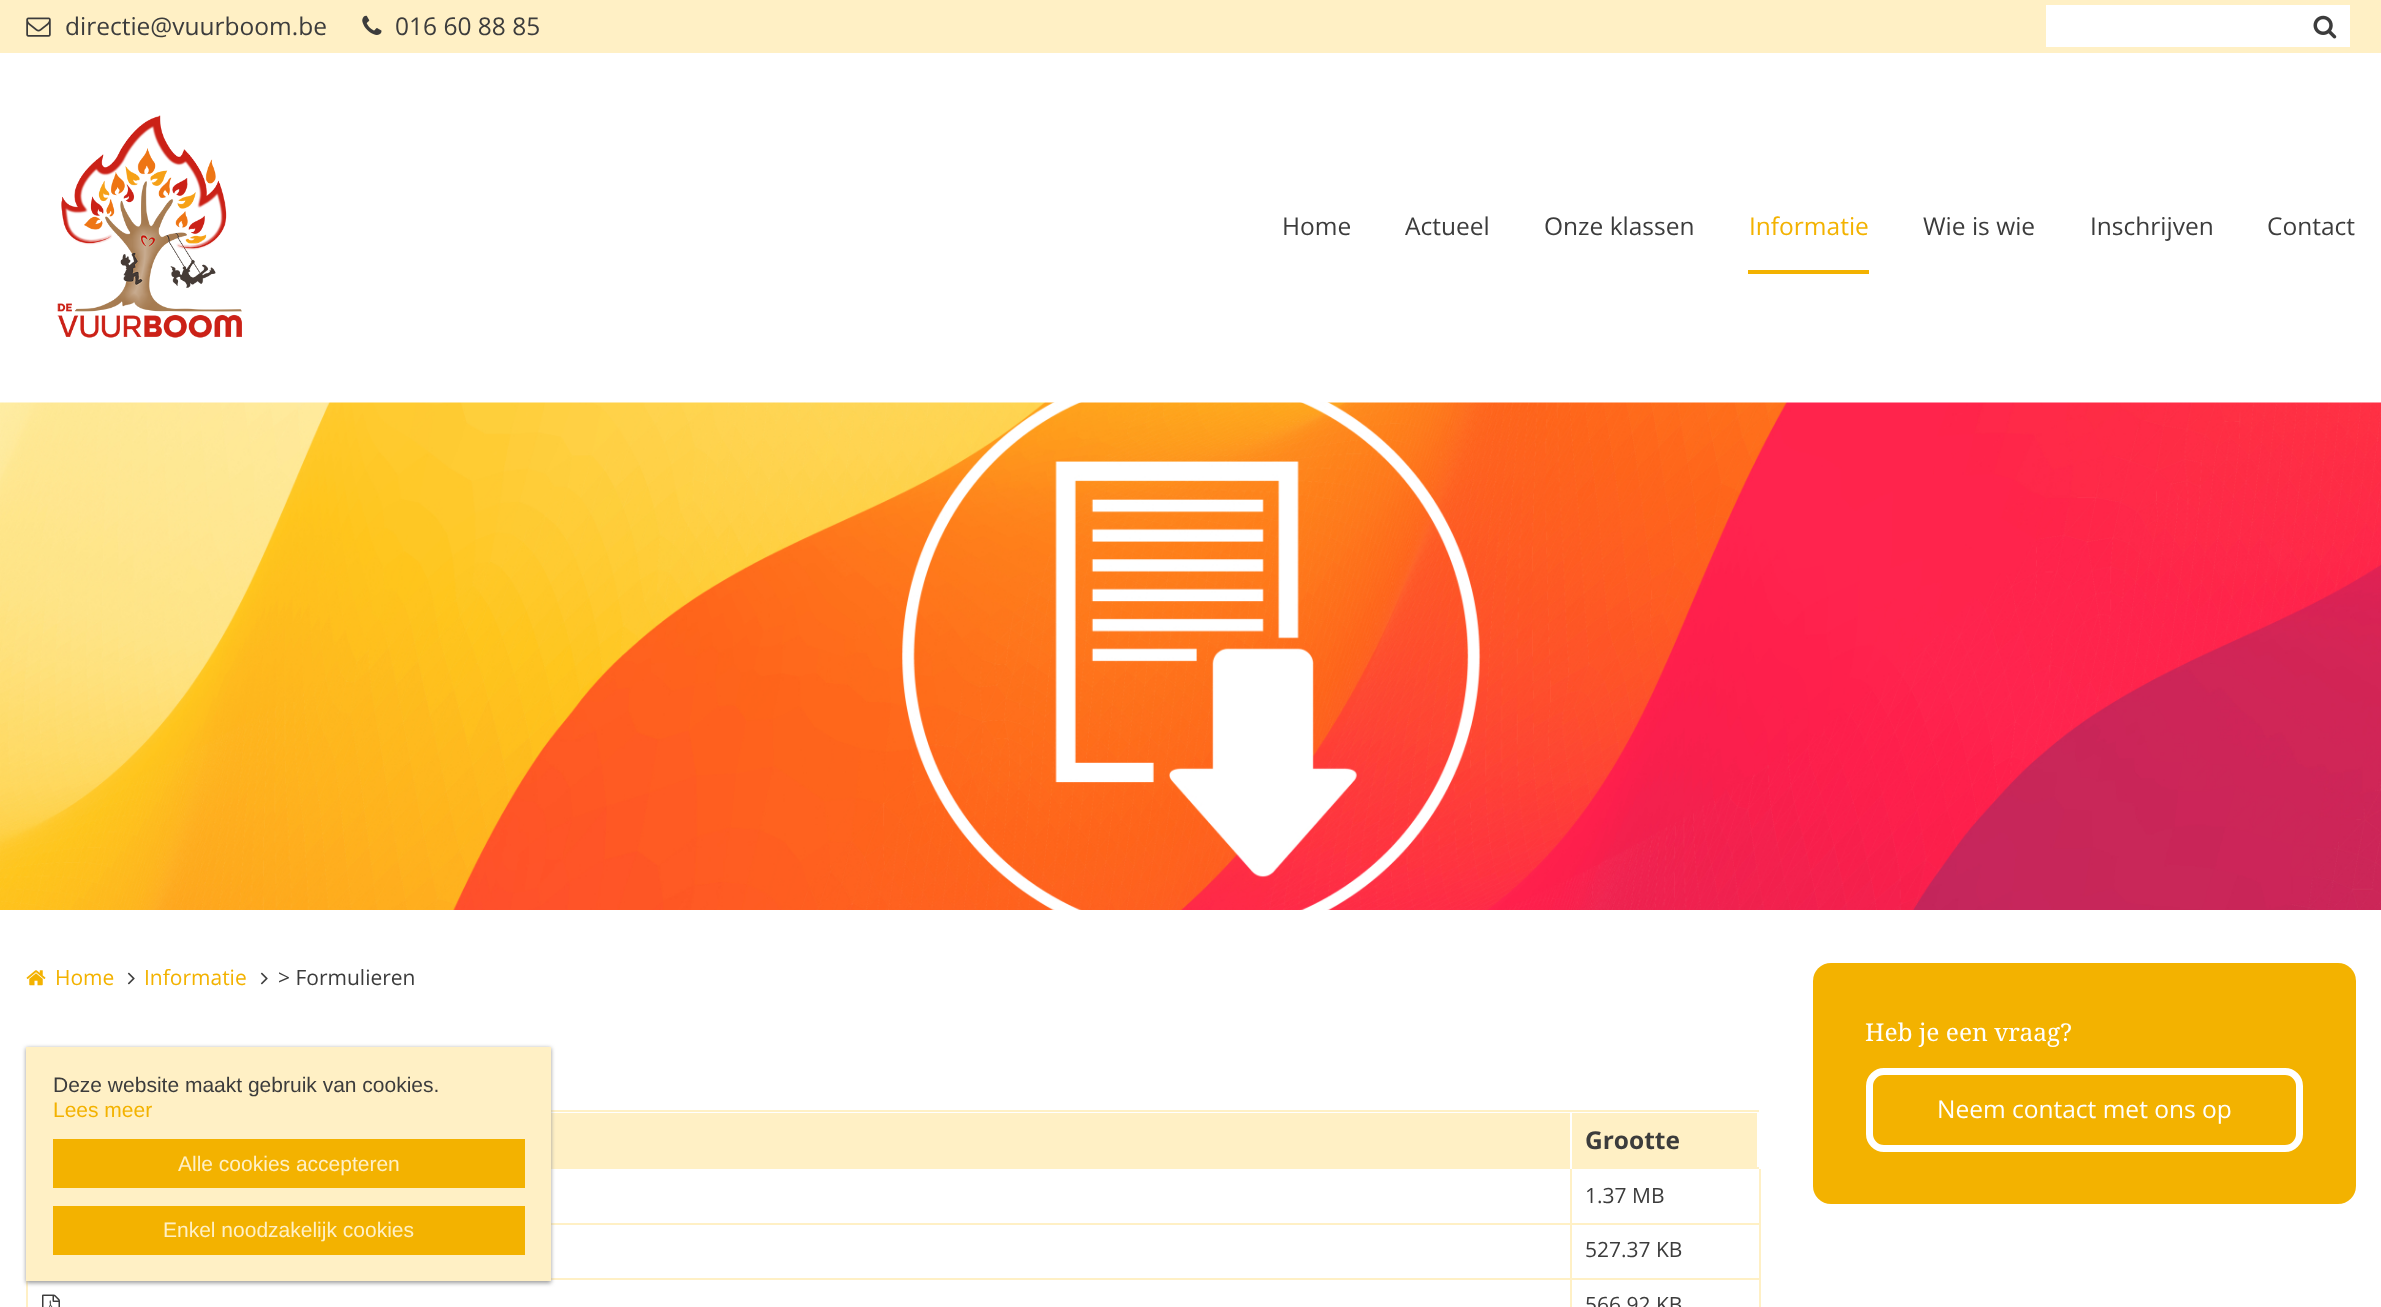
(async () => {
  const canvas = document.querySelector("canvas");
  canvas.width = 2381;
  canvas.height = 1307;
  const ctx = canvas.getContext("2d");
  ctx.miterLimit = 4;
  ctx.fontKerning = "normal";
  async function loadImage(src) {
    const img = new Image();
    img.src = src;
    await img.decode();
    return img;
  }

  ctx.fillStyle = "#ffffff";
  ctx.fillRect(0, 0, 2381, 1307);
  ctx.fillStyle = "#fff0c5";
  ctx.fillRect(0, 0, 2381, 53);
  ctx.drawImage(await loadImage("img/1.png"), 26, 17, 25, 20);
  ctx.drawImage(await loadImage("img/2.png"), 362, 15, 20, 20);
  ctx.fillStyle = "#ffffff";
  ctx.fillRect(2046, 5, 304, 42);
  ctx.drawImage(await loadImage("img/3.png"), 2313, 15, 24, 24);
  ctx.drawImage(await loadImage("img/4.png"), 57, 115, 185, 223);
  ctx.fillStyle = "#f3b200";
  ctx.fillRect(1748, 270, 121, 4);
  ctx.drawImage(await loadImage("img/5.png"), 0, 402, 2381, 508);
  ctx.drawImage(await loadImage("img/6.png"), 26, 970, 20, 16);
  ctx.drawImage(await loadImage("img/7.png"), 127, 972, 8, 13);
  ctx.drawImage(await loadImage("img/7.png"), 260, 972, 8, 13);
  for (const [x, y, w, h, color] of [
    [551, 1110, 1210, 2, "#fff0c5"],
    [1759, 1169, 2, 138, "#fff0c5"],
    [26, 1281, 2, 26, "#fff0c5"],
    [551, 1113, 1019, 54, "#fff0c5"],
    [1572, 1113, 185, 54, "#fff0c5"],
    [1570, 1167, 191, 2, "#fff0c5"],
    [1759, 1110, 2, 59, "#ffffff"],
    [1570, 1223, 191, 2, "#fff0c5"],
    [1570, 1278, 191, 2, "#fff0c5"],
    [1570, 1278, 2, 29, "#fff0c5"],
    [551, 1278, 1021, 2, "#fff0c5"],
    [1570, 1223, 2, 56, "#fff0c5"],
    [551, 1223, 1021, 2, "#fff0c5"],
    [1570, 1167, 2, 58, "#fff0c5"],
    [551, 1167, 1021, 2, "#fff0c5"],
    [1570, 1167, 2, 2, "#ffffff"],
  ]) {
    ctx.fillStyle = color;
    ctx.fillRect(x, y, w, h);
  }
  ctx.drawImage(await loadImage("img/8.png"), 42, 1294, 18, 13);
  ctx.fillStyle = "#f3b200";
  ctx.beginPath();
  ctx.roundRect(1813, 963, 543, 241, 18);
  ctx.fill();
  ctx.beginPath();
  ctx.roundRect(1869.5, 1071.5, 430, 77, 14.5);
  ctx.strokeStyle = "#ffffff";
  ctx.lineWidth = 7;
  ctx.stroke();
  ctx.fillStyle = "#999999";
  ctx.filter = "blur(2px)";
  ctx.beginPath();
  ctx.rect(26, 1048, 525, 235);
  ctx.fill();
  ctx.filter = "none";
  for (const [x, y, w, h, color] of [
    [26, 1047, 525, 234, "#fff0c5"],
    [53, 1139, 472, 49, "#f3b200"],
    [53, 1206, 472, 49, "#f3b200"],
  ]) {
    ctx.fillStyle = color;
    ctx.fillRect(x, y, w, h);
  }
  ctx.font = "24.5px Open Sans";
  ctx.fillStyle = "#3c3c3c";
  for (const [text, x, y] of [
    ["directie@vuurboom.be", 65, 35],
    ["016 60 88 85", 395, 35],
    ["Home", 1282, 235],
    ["Actueel", 1405, 235],
    ["Onze klassen", 1544, 235],
  ]) {
    ctx.fillText(text, x, y);
  }
  ctx.fillStyle = "#f3b200";
  ctx.fillText("Informatie", 1749, 235);
  ctx.fillStyle = "#3c3c3c";
  for (const [text, x, y] of [
    ["Wie is wie", 1923, 235],
    ["Inschrijven", 2090, 235],
    ["Contact", 2267, 235],
  ]) {
    ctx.fillText(text, x, y);
  }
  ctx.font = "21px Open Sans";
  ctx.fillStyle = "#f3b200";
  ctx.fillText("Home", 55, 985);
  ctx.fillText("Informatie", 144, 985);
  ctx.fillStyle = "#3c3c3c";
  ctx.fillText("> Formulieren", 278, 985);
  ctx.font = "bold 24.5px Open Sans";
  ctx.fillText("Grootte", 1585, 1149);
  ctx.font = "21px Open Sans";
  for (const [text, x, y] of [
    ["1.37 MB", 1585, 1203],
    ["527.37 KB", 1585, 1257],
    ["566.92 KB", 1585, 1312],
  ]) {
    ctx.fillText(text, x, y);
  }
  ctx.font = "24.5px Noto Serif";
  ctx.fillStyle = "#ffffff";
  ctx.fillText("Heb je een vraag?", 1865, 1041);
  ctx.font = "24.5px Open Sans";
  ctx.fillText("Neem contact met ons op", 1937, 1118);
  ctx.font = "21px Liberation Sans";
  ctx.fillStyle = "#3c3c3c";
  ctx.fillText("Deze website maakt gebruik van cookies.", 53, 1092);
  ctx.fillStyle = "#f3b200";
  ctx.fillText("Lees meer", 53, 1117);
  ctx.fillStyle = "#fff0c5";
  ctx.fillText("Alle cookies accepteren", 178, 1171);
  ctx.fillText("Enkel noodzakelijk cookies", 163, 1237);
})();
